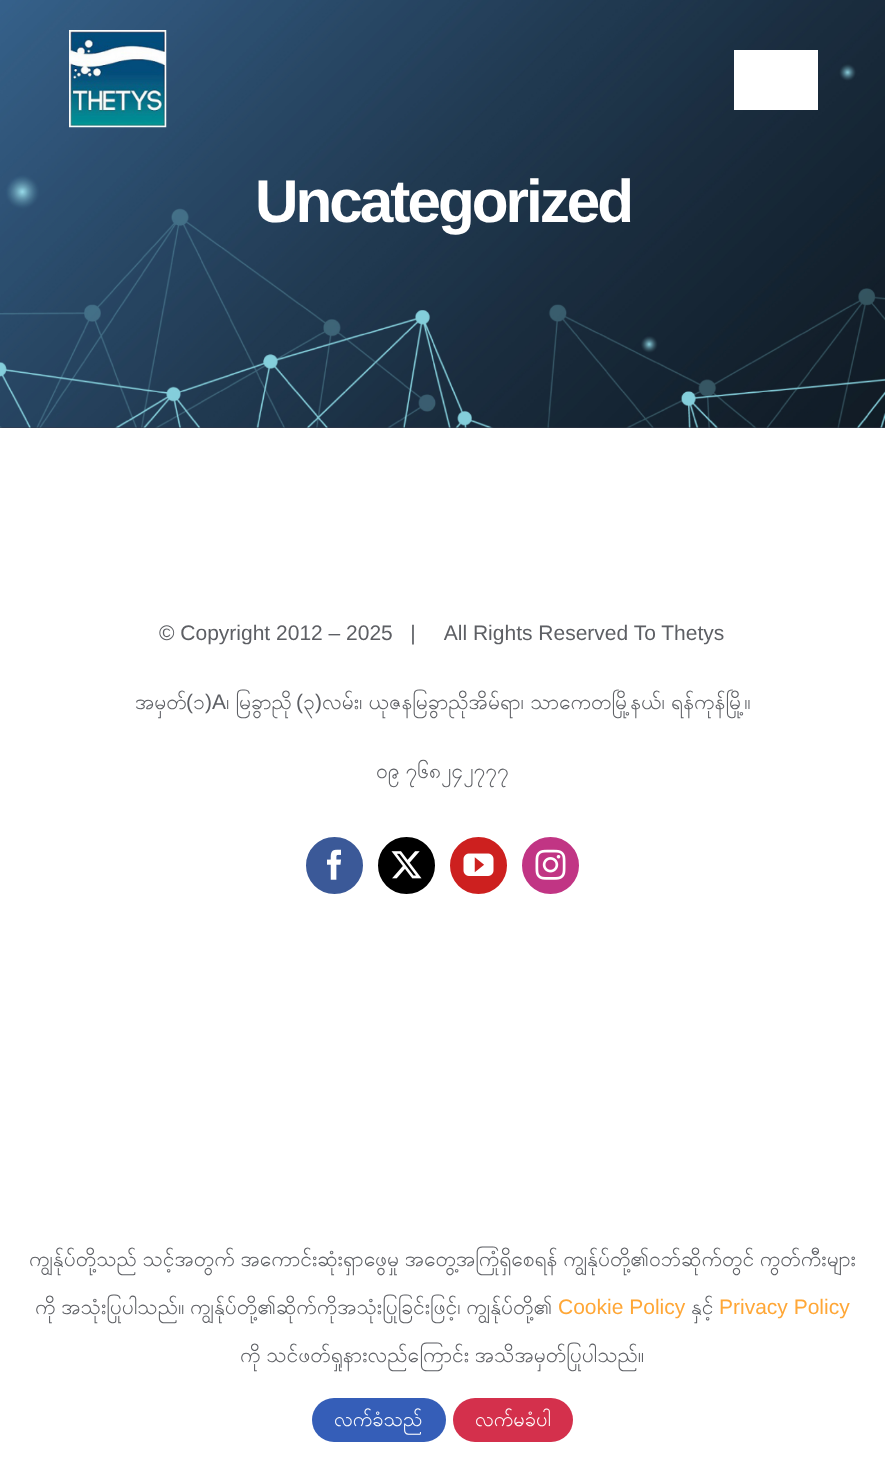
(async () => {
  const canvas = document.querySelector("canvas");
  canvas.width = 885;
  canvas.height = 1463;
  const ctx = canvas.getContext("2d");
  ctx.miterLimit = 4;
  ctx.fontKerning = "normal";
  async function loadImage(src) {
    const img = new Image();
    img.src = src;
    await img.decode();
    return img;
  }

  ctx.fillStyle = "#ffffff";
  ctx.fillRect(0, 0, 885, 1463);
  ctx.fillStyle = "#363948";
  ctx.fillRect(0, 427, 885, 1);
  ctx.drawImage(await loadImage("img/2.png"), 0, 0, 885, 428);
  ctx.drawImage(await loadImage("img/1.png"), 69, 30, 98, 98);
  ctx.fillStyle = "#ffffff";
  ctx.fillRect(734, 50, 84, 60);
  ctx.fillStyle = "#3b5998";
  ctx.beginPath();
  ctx.arc(334.5, 865.5, 27.5, 0, Math.PI * 2);
  ctx.fill();
  ctx.strokeStyle = "#3b5998";
  ctx.lineWidth = 2;
  ctx.stroke();
  ctx.drawImage(await loadImage("img/3.png"), 327, 849, 14, 31);
  ctx.fillStyle = "#000000";
  ctx.beginPath();
  ctx.arc(406.5, 865.5, 27.5, 0, Math.PI * 2);
  ctx.fill();
  ctx.strokeStyle = "#000000";
  ctx.stroke();
  ctx.drawImage(await loadImage("img/4.png"), 391, 851, 31, 28);
  ctx.fillStyle = "#cd201f";
  ctx.beginPath();
  ctx.arc(478.5, 865.5, 27.5, 0, Math.PI * 2);
  ctx.fill();
  ctx.strokeStyle = "#cd201f";
  ctx.stroke();
  ctx.drawImage(await loadImage("img/5.png"), 463, 853, 31, 23);
  ctx.fillStyle = "#c13584";
  ctx.beginPath();
  ctx.arc(550.5, 865.5, 27.5, 0, Math.PI * 2);
  ctx.fill();
  ctx.strokeStyle = "#c13584";
  ctx.stroke();
  ctx.drawImage(await loadImage("img/6.png"), 535, 849, 31, 31);
  ctx.fillStyle = "#355eb8";
  ctx.beginPath();
  ctx.roundRect(312, 1398, 134, 44, 22);
  ctx.fill();
  ctx.fillStyle = "#d4304c";
  ctx.beginPath();
  ctx.roundRect(453, 1398, 120, 44, 22);
  ctx.fill();
  ctx.letterSpacing = "-3px";
  ctx.font = "bold 60.25px Liberation Sans";
  ctx.fillStyle = "#ffffff";
  ctx.fillText("Uncategorized", 255, 222);
  ctx.letterSpacing = "0px";
  ctx.font = "21px Liberation Sans";
  ctx.fillStyle = "#5d5f64";
  ctx.fillText("© Copyright 2012 – 2025   |     All Rights Reserved To Thetys", 159, 640);
  ctx.font = "21px Padauk";
  ctx.fillText("အမှတ်", 135, 709);
  ctx.font = "21px Liberation Sans";
  ctx.fillText("(", 186, 709);
  ctx.font = "21px Padauk";
  ctx.fillText("၁", 193, 709);
  ctx.font = "21px Liberation Sans";
  ctx.fillText(")A", 205, 709);
  ctx.wordSpacing = "-1.5px";
  ctx.font = "21px Padauk";
  ctx.fillText("၊ မြခွာညို", 226, 709);
  ctx.wordSpacing = "0px";
  ctx.font = "21px Liberation Sans";
  ctx.fillText("(", 296, 709);
  ctx.font = "21px Padauk";
  ctx.fillText("၃", 303, 709);
  ctx.font = "21px Liberation Sans";
  ctx.fillText(")", 315, 709);
  ctx.wordSpacing = "-1.5px";
  ctx.font = "21px Padauk";
  ctx.fillText("လမ်း၊ ယုဇနမြခွာညိုအိမ်ရာ၊ သာကေတမြို့နယ်၊ ရန်ကုန်မြို့။", 322, 709);
  ctx.wordSpacing = "-2px";
  for (const [text, x, y] of [
    ["၀၉ ၇၆၈၂၄၂၇၇၇", 376, 778],
    ["ကျွန်ုပ်တို့သည် သင့်အတွက် အကောင်းဆုံးရှာဖွေမှု အတွေ့အကြုံရှိစေရန် ကျွန်ုပ်တို့၏ဝဘ်ဆိုက်တွင် ကွတ်ကီးများ", 29, 1266],
    ["ကို အသုံးပြုပါသည်။ ကျွန်ုပ်တို့၏ဆိုက်ကိုအသုံးပြုခြင်းဖြင့်၊ ကျွန်ုပ်တို့၏", 35, 1314],
  ]) {
    ctx.fillText(text, x, y);
  }
  ctx.wordSpacing = "0px";
  ctx.font = "21px Liberation Sans";
  ctx.fillStyle = "#ffa737";
  ctx.fillText("Cookie Policy", 558, 1314);
  ctx.font = "21px Padauk";
  ctx.fillStyle = "#5d5f64";
  ctx.fillText("နှင့်", 691, 1314);
  ctx.font = "21px Liberation Sans";
  ctx.fillStyle = "#ffa737";
  ctx.fillText("Privacy Policy", 719, 1314);
  ctx.wordSpacing = "-2px";
  ctx.font = "21px Padauk";
  ctx.fillStyle = "#5d5f64";
  ctx.fillText("ကို သင်ဖတ်ရှုနားလည်ကြောင်း အသိအမှတ်ပြုပါသည်။", 240, 1362);
  ctx.wordSpacing = "0px";
  ctx.font = "20px Padauk";
  ctx.fillStyle = "#ffffff";
  ctx.fillText("လက်ခံသည်", 334, 1426);
  ctx.fillText("လက်မခံပါ", 475, 1426);
})();
